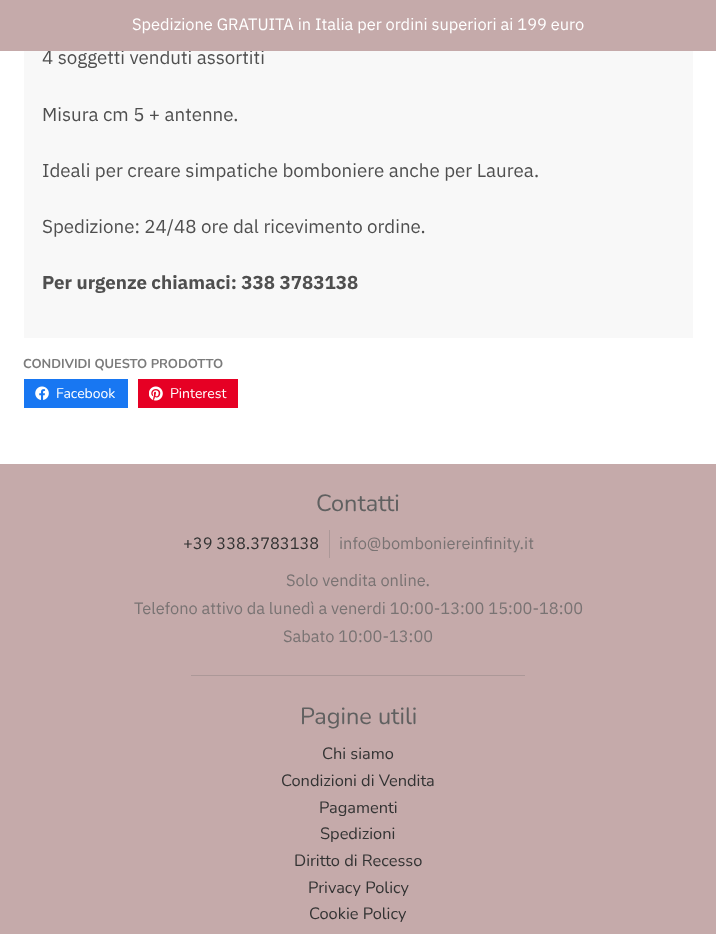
(async () => {
  const canvas = document.querySelector("canvas");
  canvas.width = 716;
  canvas.height = 934;
  const ctx = canvas.getContext("2d");
  ctx.miterLimit = 4;
  ctx.fontKerning = "normal";
  async function loadImage(src) {
    const img = new Image();
    img.src = src;
    await img.decode();
    return img;
  }

  ctx.fillStyle = "#c5aaaa";
  ctx.fillRect(0, 0, 716, 934);
  for (const [x, y, w, h, color] of [
    [0, 51, 716, 413, "#ffffff"],
    [24, 51, 669, 287, "#f8f8f8"],
    [24, 379, 104, 29, "#1877f2"],
  ]) {
    ctx.fillStyle = color;
    ctx.fillRect(x, y, w, h);
  }
  ctx.drawImage(await loadImage("img/1.png"), 35, 386, 14, 14);
  ctx.fillStyle = "#e60024";
  ctx.fillRect(138, 379, 100, 29);
  ctx.drawImage(await loadImage("img/2.png"), 149, 386, 14, 15);
  ctx.fillStyle = "#ac9898";
  ctx.fillRect(329, 530, 1, 28);
  ctx.fillRect(191, 675, 334, 1);
  ctx.font = "16.4px IBM Plex Sans";
  ctx.fillStyle = "#ffffff";
  ctx.fillText("Spedizione GRATUITA in Italia per ordini superiori ai 199 euro", 132, 30);
  ctx.font = "18.75px IBM Plex Sans";
  ctx.fillStyle = "#4f4f4f";
  ctx.fillText("4 soggetti venduti assortiti", 42, 64);
  ctx.fillStyle = "#c5aaaa";
  ctx.fillRect(48, 50, 216, 1);
  ctx.fillStyle = "#4f4f4f";
  for (const [text, x, y] of [
    ["Misura cm 5 + antenne.", 42, 121],
    ["Ideali per creare simpatiche bomboniere anche per Laurea.", 42, 177],
    ["Spedizione: 24/48 ore dal ricevimento ordine.", 42, 233],
  ]) {
    ctx.fillText(text, x, y);
  }
  ctx.font = "bold 18.75px IBM Plex Sans";
  ctx.fillText("Per urgenze chiamaci: 338 3783138", 42, 289);
  ctx.font = "bold 12.9px Nunito";
  ctx.fillStyle = "#7b7b7b";
  ctx.fillText("CONDIVIDI QUESTO PRODOTTO", 23, 368);
  ctx.font = "14px Nunito";
  ctx.fillStyle = "#ffffff";
  ctx.fillText("Facebook", 56, 398);
  ctx.fillText("Pinterest", 170, 398);
  ctx.font = "23.5px Nunito";
  ctx.fillStyle = "#606060";
  ctx.fillText("Contatti", 316, 511);
  ctx.font = "16.4px IBM Plex Sans";
  ctx.fillStyle = "#333333";
  ctx.fillText("+39 338.3783138", 183, 549);
  ctx.fillStyle = "#797373";
  for (const [text, x, y] of [
    ["info@bomboniereinfinity.it", 339, 549],
    ["Solo vendita online.", 286, 586],
    ["Telefono attivo da lunedì a venerdi 10:00-13:00 15:00-18:00", 134, 614],
    ["Sabato 10:00-13:00", 283, 642],
  ]) {
    ctx.fillText(text, x, y);
  }
  ctx.font = "23.5px Nunito";
  ctx.fillStyle = "#606060";
  ctx.fillText("Pagine utili", 300, 724);
  ctx.font = "16.4px Nunito";
  ctx.fillStyle = "#333333";
  for (const [text, x, y] of [
    ["Chi siamo", 322, 759],
    ["Condizioni di Vendita", 281, 786],
    ["Pagamenti", 319, 813],
    ["Spedizioni", 320, 839],
    ["Diritto di Recesso", 294, 866],
    ["Privacy Policy", 308, 893],
    ["Cookie Policy", 309, 919],
  ]) {
    ctx.fillText(text, x, y);
  }
})();
